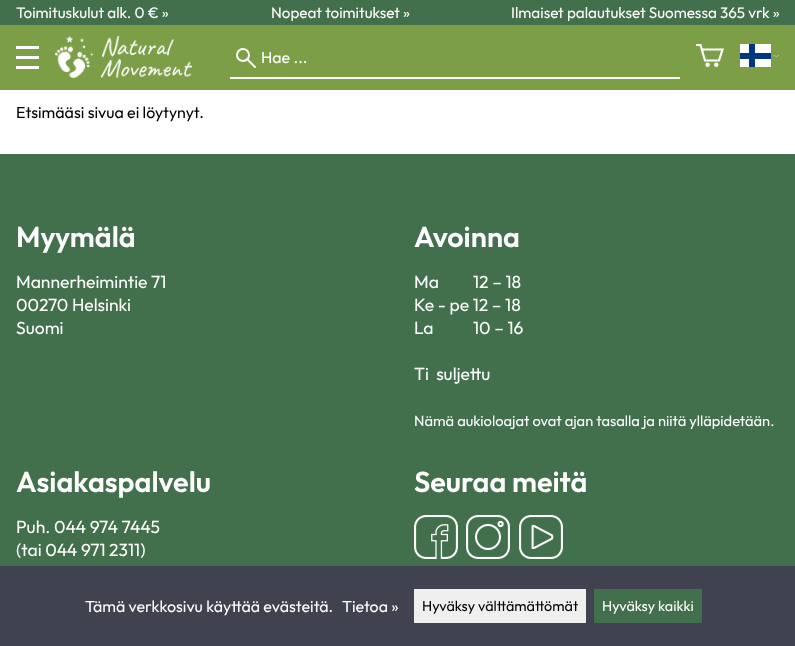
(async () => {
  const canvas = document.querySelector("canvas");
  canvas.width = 795;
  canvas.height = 646;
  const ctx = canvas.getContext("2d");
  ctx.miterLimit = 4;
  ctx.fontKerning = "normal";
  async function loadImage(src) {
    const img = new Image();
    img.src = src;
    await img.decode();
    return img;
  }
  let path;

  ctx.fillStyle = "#ffffff";
  ctx.fillRect(0, 0, 795, 646);
  ctx.fillStyle = "#42704c";
  ctx.fillRect(0, 0, 795, 25);
  ctx.fillStyle = "#7b9e47";
  ctx.fillRect(0, 25, 795, 65);
  ctx.drawImage(await loadImage("img/1.png"), 16, 46, 23, 23);
  ctx.drawImage(await loadImage("img/2.png"), 55, 36, 137, 42);
  path = new Path2D("M255 67L247 59");
  ctx.strokeStyle = "#ffffff";
  ctx.lineWidth = 1.9;
  ctx.lineCap = "round";
  ctx.stroke(path);
  ctx.beginPath();
  ctx.arc(243, 55, 6, 0, Math.PI * 2);
  ctx.stroke();
  ctx.fillStyle = "#ffffff";
  ctx.fillRect(230, 77, 450, 2);
  ctx.save();
  ctx.beginPath();
  ctx.rect(696, 44, 28, 23);
  ctx.clip();
  path = new Path2D("M702 49.5H722.5L719 60.5H705L700.5 45H697");
  ctx.lineWidth = 2.2;
  ctx.stroke(path);
  ctx.restore();
  ctx.beginPath();
  ctx.arc(707.6, 64.8, 1.1, 0, Math.PI * 2);
  ctx.lineWidth = 2.2;
  ctx.stroke();
  ctx.beginPath();
  ctx.arc(716.3, 64.8, 1.1, 0, Math.PI * 2);
  ctx.stroke();
  for (const [x, y, w, h, color] of [
    [740, 44, 31, 23, "#ffffff"],
    [740, 53, 31, 6, "#003580"],
    [749, 44, 6, 23, "#003580"],
  ]) {
    ctx.fillStyle = color;
    ctx.fillRect(x, y, w, h);
  }
  path = new Path2D("M774 55.5L776.5 56.5L778.5 55.5");
  ctx.lineWidth = 0.4;
  ctx.stroke(path);
  ctx.fillStyle = "#42704c";
  ctx.fillRect(0, 154, 795, 412);
  ctx.drawImage(await loadImage("img/3.png"), 414, 515, 44, 44);
  ctx.drawImage(await loadImage("img/4.png"), 466, 515, 44, 44);
  ctx.drawImage(await loadImage("img/5.png"), 519, 515, 44, 44);
  for (const [x, y, w, h, color] of [
    [0, 566, 795, 80, "#41424f"],
    [414, 589, 172, 34, "#efefef"],
    [594, 589, 108, 34, "#42704c"],
  ]) {
    ctx.fillStyle = color;
    ctx.fillRect(x, y, w, h);
  }
  ctx.font = "100 15.25px Outfit";
  ctx.fillStyle = "#ffffff";
  for (const [text, x, y] of [
    ["Toimituskulut alk. 0 € »", 16, 18],
    ["Nopeat toimitukset »", 271, 18],
    ["Ilmaiset palautukset Suomessa 365 vrk »", 511, 18],
  ]) {
    ctx.fillText(text, x, y);
  }
  ctx.font = "100 16px Outfit";
  ctx.fillText("Hae ...", 261, 63);
  ctx.fillStyle = "#000000";
  ctx.fillText("Etsimääsi sivua ei löytynyt.", 16, 118);
  ctx.font = "100 28.75px 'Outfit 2'";
  ctx.fillStyle = "#ffffff";
  ctx.fillText("Myymälä", 16, 247);
  ctx.font = "100 17.5px Outfit";
  for (const [text, x, y] of [
    ["Mannerheimintie 71", 16, 288],
    ["00270 Helsinki", 16, 311],
    ["Suomi", 16, 334],
  ]) {
    ctx.fillText(text, x, y);
  }
  ctx.font = "100 28.75px 'Outfit 2'";
  ctx.fillText("Avoinna", 414, 247);
  ctx.font = "100 17.5px Outfit";
  for (const [text, x, y] of [
    ["Ma", 414, 288],
    ["12 – 18", 473, 288],
    ["Ke - pe 12 – 18", 414, 311],
    ["La", 414, 334],
    ["10 – 16", 473, 334],
    ["Ti  suljettu", 414, 380],
  ]) {
    ctx.fillText(text, x, y);
  }
  ctx.font = "100 14.7px Outfit";
  ctx.fillText("Nämä aukioloajat ovat ajan tasalla ja niitä ylläpidetään.", 414, 426);
  ctx.font = "100 28.75px 'Outfit 2'";
  ctx.fillText("Asiakaspalvelu", 16, 492);
  ctx.font = "100 17.5px Outfit";
  ctx.fillText("Puh. 044 974 7445", 16, 533);
  ctx.fillText("(tai 044 971 2311)", 16, 556);
  ctx.font = "100 28.75px 'Outfit 2'";
  ctx.fillText("Seuraa meitä", 414, 492);
  ctx.font = "100 16px Outfit";
  ctx.fillText("Tämä verkkosivu käyttää evästeitä.", 85, 612);
  ctx.fillText("Tietoa »", 342, 612);
  ctx.font = "100 14.4px Outfit";
  ctx.fillStyle = "#000000";
  ctx.fillText("Hyväksy välttämättömät", 422, 611);
  ctx.fillStyle = "#ffffff";
  ctx.fillText("Hyväksy kaikki", 602, 611);
})();
